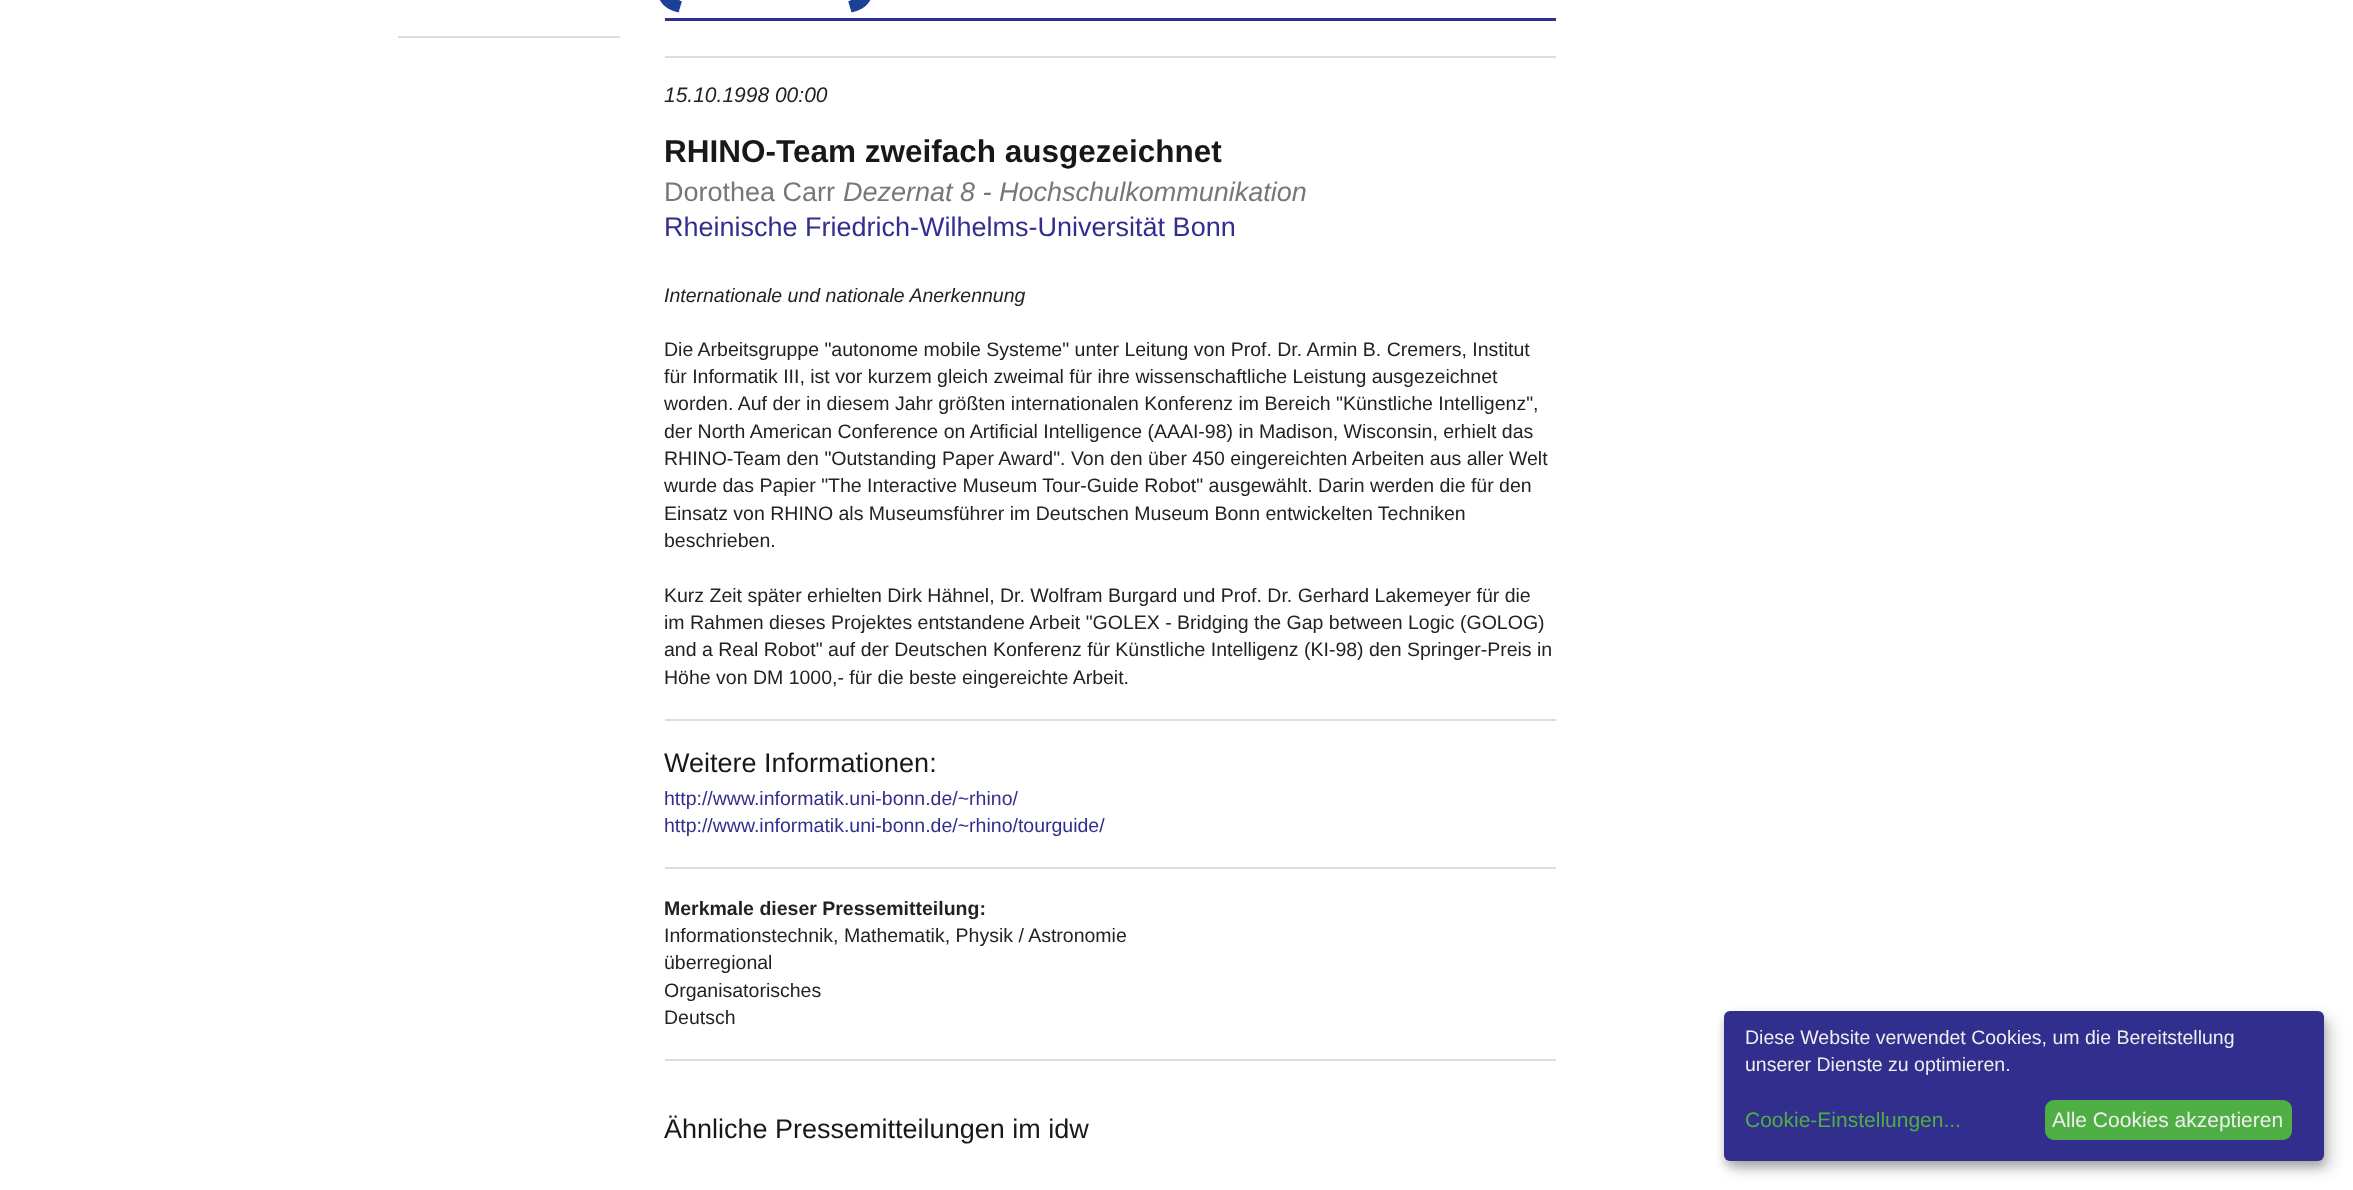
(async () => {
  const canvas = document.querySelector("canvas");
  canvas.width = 2353;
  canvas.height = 1190;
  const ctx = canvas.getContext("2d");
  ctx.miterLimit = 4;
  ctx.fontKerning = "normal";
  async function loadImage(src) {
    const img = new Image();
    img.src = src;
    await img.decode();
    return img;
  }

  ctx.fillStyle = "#ffffff";
  ctx.fillRect(0, 0, 2353, 1190);
  ctx.drawImage(await loadImage("img/1.png"), 659, 0, 212, 13);
  for (const [x, y, w, h, color] of [
    [398, 36, 222, 2, "#dddddd"],
    [665, 18, 891, 3, "#322e8d"],
    [665, 56, 891, 2, "#dddddd"],
    [665, 719, 891, 2, "#dddddd"],
    [665, 867, 891, 2, "#dddddd"],
    [665, 1059, 891, 2, "#dddddd"],
  ]) {
    ctx.fillStyle = color;
    ctx.fillRect(x, y, w, h);
  }
  ctx.fillStyle = "rgba(0, 0, 0, 0.19)";
  ctx.filter = "blur(7.5px)";
  ctx.beginPath();
  ctx.roundRect(1731, 1019, 600, 150, 6);
  ctx.fill();
  ctx.filter = "none";
  ctx.fillStyle = "rgba(0, 0, 0, 0.2)";
  ctx.filter = "blur(4.5px)";
  ctx.beginPath();
  ctx.roundRect(1724, 1017, 600, 150, 6);
  ctx.fill();
  ctx.filter = "none";
  ctx.fillStyle = "#322e8d";
  ctx.beginPath();
  ctx.roundRect(1724, 1011, 600, 150, 6);
  ctx.fill();
  ctx.fillStyle = "#4faf45";
  ctx.beginPath();
  ctx.roundRect(2045, 1100, 247, 40, 9);
  ctx.fill();
  ctx.font = "italic 21px Liberation Sans";
  ctx.fillStyle = "#222222";
  ctx.fillText("15.10.1998 00:00", 664, 102);
  ctx.font = "bold 31.5px Liberation Sans";
  ctx.fillStyle = "#181818";
  ctx.fillText("RHINO-Team zweifach ausgezeichnet", 664, 162);
  ctx.font = "27px Liberation Sans";
  ctx.fillStyle = "#777777";
  ctx.fillText("Dorothea Carr", 664, 201);
  ctx.font = "italic 27px Liberation Sans";
  ctx.fillText("Dezernat 8 - Hochschulkommunikation", 843, 201);
  ctx.font = "27px Liberation Sans";
  ctx.fillStyle = "#322e8d";
  ctx.fillText("Rheinische Friedrich-Wilhelms-Universität Bonn", 664, 236);
  ctx.font = "italic 19.5px Liberation Sans";
  ctx.fillStyle = "#222222";
  ctx.fillText("Internationale und nationale Anerkennung", 664, 302);
  ctx.font = "19.5px Liberation Sans";
  for (const [text, x, y] of [
    ["Die Arbeitsgruppe \"autonome mobile Systeme\" unter Leitung von Prof. Dr. Armin B. Cremers, Institut", 664, 356],
    ["für Informatik III, ist vor kurzem gleich zweimal für ihre wissenschaftliche Leistung ausgezeichnet", 664, 383],
    ["worden. Auf der in diesem Jahr größten internationalen Konferenz im Bereich \"Künstliche Intelligenz\",", 664, 410],
    ["der North American Conference on Artificial Intelligence (AAAI-98) in Madison, Wisconsin, erhielt das", 664, 438],
    ["RHINO-Team den \"Outstanding Paper Award\". Von den über 450 eingereichten Arbeiten aus aller Welt", 664, 465],
    ["wurde das Papier \"The Interactive Museum Tour-Guide Robot\" ausgewählt. Darin werden die für den", 664, 492],
    ["Einsatz von RHINO als Museumsführer im Deutschen Museum Bonn entwickelten Techniken", 664, 520],
    ["beschrieben.", 664, 547],
    ["Kurz Zeit später erhielten Dirk Hähnel, Dr. Wolfram Burgard und Prof. Dr. Gerhard Lakemeyer für die", 664, 602],
    ["im Rahmen dieses Projektes entstandene Arbeit \"GOLEX - Bridging the Gap between Logic (GOLOG)", 664, 629],
    ["and a Real Robot\" auf der Deutschen Konferenz für Künstliche Intelligenz (KI-98) den Springer-Preis in", 664, 656],
    ["Höhe von DM 1000,- für die beste eingereichte Arbeit.", 664, 684],
  ]) {
    ctx.fillText(text, x, y);
  }
  ctx.font = "27px Liberation Sans";
  ctx.fillStyle = "#181818";
  ctx.fillText("Weitere Informationen:", 664, 772);
  ctx.font = "19.5px Liberation Sans";
  ctx.fillStyle = "#322e8d";
  ctx.fillText("http://www.informatik.uni-bonn.de/~rhino/", 664, 805);
  ctx.fillText("http://www.informatik.uni-bonn.de/~rhino/tourguide/", 664, 832);
  ctx.font = "bold 19.5px Liberation Sans";
  ctx.fillStyle = "#222222";
  ctx.fillText("Merkmale dieser Pressemitteilung:", 664, 915);
  ctx.font = "19.5px Liberation Sans";
  for (const [text, x, y] of [
    ["Informationstechnik, Mathematik, Physik / Astronomie", 664, 942],
    ["überregional", 664, 969],
    ["Organisatorisches", 664, 997],
    ["Deutsch", 664, 1024],
  ]) {
    ctx.fillText(text, x, y);
  }
  ctx.font = "27px Liberation Sans";
  ctx.fillStyle = "#181818";
  ctx.fillText("Ähnliche Pressemitteilungen im idw", 664, 1138);
  ctx.font = "19.5px Liberation Sans";
  ctx.fillStyle = "#eeeeee";
  ctx.fillText("Diese Website verwendet Cookies, um die Bereitstellung", 1745, 1044);
  ctx.fillText("unserer Dienste zu optimieren.", 1745, 1071);
  ctx.font = "21px Liberation Sans";
  ctx.fillStyle = "#4faf45";
  ctx.fillText("Cookie-Einstellungen...", 1745, 1127);
  ctx.fillStyle = "#eeeeee";
  ctx.fillText("Alle Cookies akzeptieren", 2052, 1127);
})();
